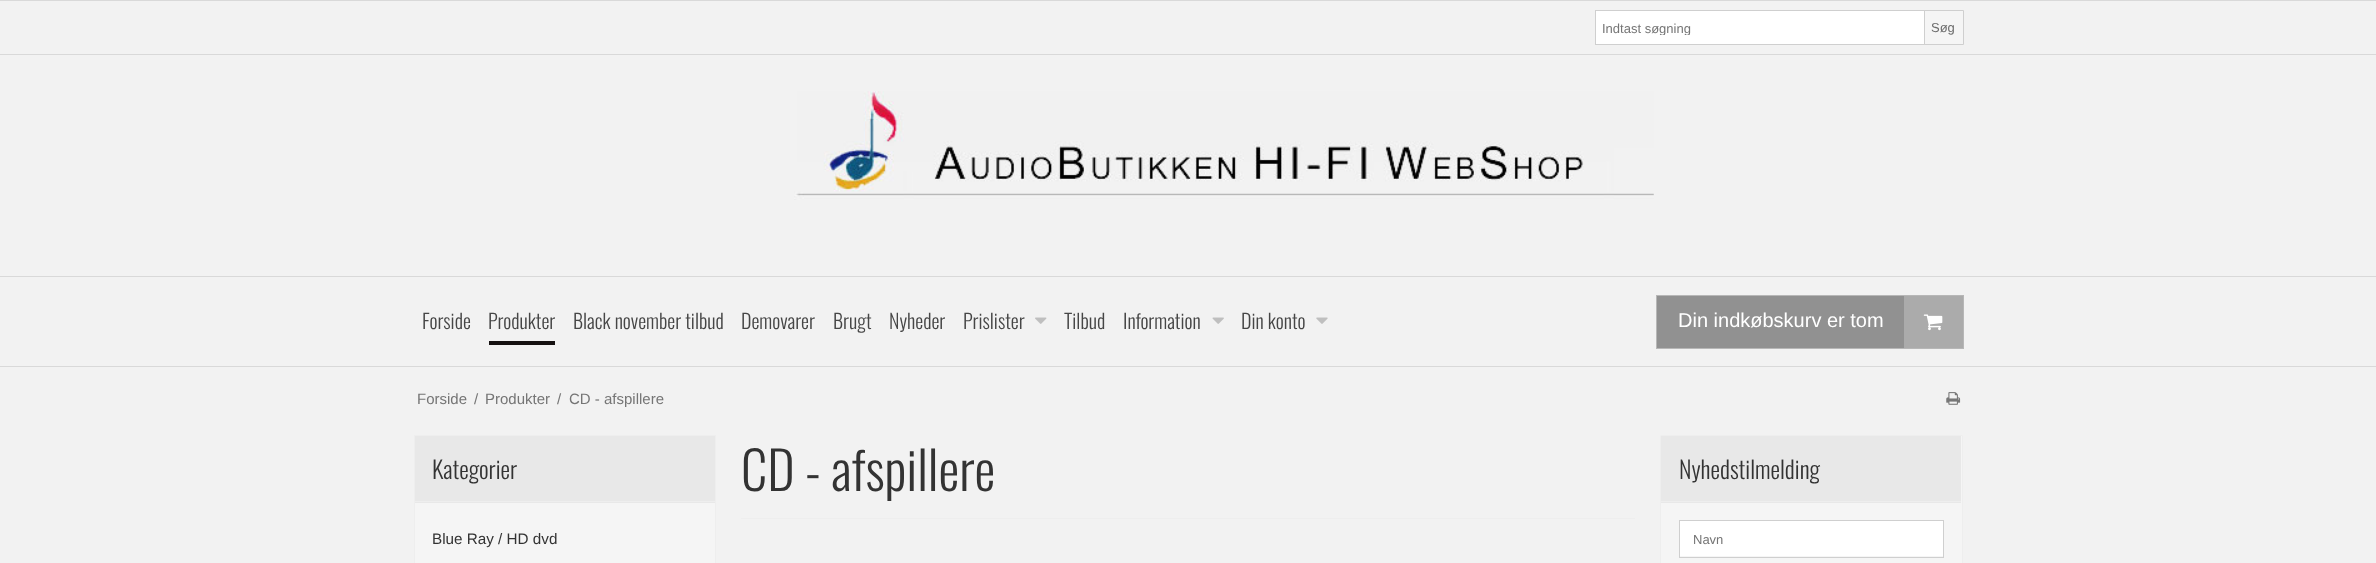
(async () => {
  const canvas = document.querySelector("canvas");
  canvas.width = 2376;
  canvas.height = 563;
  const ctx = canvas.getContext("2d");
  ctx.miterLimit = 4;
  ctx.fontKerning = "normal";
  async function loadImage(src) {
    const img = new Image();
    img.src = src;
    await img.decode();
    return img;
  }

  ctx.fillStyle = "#f2f2f2";
  ctx.fillRect(0, 0, 2376, 563);
  for (const [x, y, w, h, color] of [
    [0, 0, 2376, 1, "#d9d9d9"],
    [0, 54, 2376, 1, "#d9d9d9"],
    [1596, 11, 328, 33, "#ffffff"],
    [1595, 10, 330, 1, "#cfcfcf"],
    [1595, 44, 330, 1, "#cfcfcf"],
    [1595, 10, 1, 35, "#cfcfcf"],
  ]) {
    ctx.fillStyle = color;
    ctx.fillRect(x, y, w, h);
  }
  ctx.fillStyle = "#f5f5f5";
  ctx.beginPath();
  ctx.rect(1924.5, 10.5, 39, 34);
  ctx.fill();
  ctx.strokeStyle = "#cfcfcf";
  ctx.stroke();
  ctx.drawImage(await loadImage("img/1.png"), 794, 91, 860, 109);
  for (const [x, y, w, h, color] of [
    [0, 276, 2376, 1, "#d9d9d9"],
    [0, 366, 2376, 1, "#d9d9d9"],
    [489, 341, 66, 4, "#151111"],
  ]) {
    ctx.fillStyle = color;
    ctx.fillRect(x, y, w, h);
  }
  ctx.drawImage(await loadImage("img/2.png"), 1035, 317, 12, 7);
  ctx.drawImage(await loadImage("img/3.png"), 1212, 317, 12, 7);
  ctx.drawImage(await loadImage("img/4.png"), 1316, 317, 12, 7);
  ctx.fillStyle = "#919191";
  ctx.fillRect(1657, 296, 247, 52);
  ctx.strokeStyle = "#b7b7b7";
  ctx.strokeRect(1656.5, 295.5, 307, 53);
  ctx.fillStyle = "#ababab";
  ctx.fillRect(1904, 296, 59, 52);
  ctx.drawImage(await loadImage("img/5.png"), 1923, 314, 20, 17);
  ctx.drawImage(await loadImage("img/6.png"), 1946, 392, 15, 13);
  ctx.fillStyle = "#f5f5f5";
  ctx.fillRect(415, 503, 300, 60);
  ctx.strokeStyle = "#eeeeee";
  ctx.strokeRect(414.5, 435.5, 301, 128);
  for (const [x, y, w, h, color] of [
    [415, 436, 300, 67, "#e8e8e8"],
    [415, 501, 300, 1, "#eeeeee"],
    [741, 518, 894, 1, "#eeeeee"],
  ]) {
    ctx.fillStyle = color;
    ctx.fillRect(x, y, w, h);
  }
  ctx.fillStyle = "#f5f5f5";
  ctx.beginPath();
  ctx.rect(1660.5, 435.5, 302, 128);
  ctx.fill();
  ctx.stroke();
  for (const [x, y, w, h, color] of [
    [1661, 436, 300, 67, "#e8e8e8"],
    [1661, 501, 300, 1, "#eeeeee"],
    [1680, 521, 263, 35, "#ffffff"],
  ]) {
    ctx.fillStyle = color;
    ctx.fillRect(x, y, w, h);
  }
  ctx.strokeStyle = "#cfcfcf";
  ctx.strokeRect(1679.5, 520.5, 264, 37);
  ctx.save();
  ctx.beginPath();
  ctx.rect(1603, 20, 315, 15);
  ctx.clip();
  ctx.font = "13px Liberation Sans";
  ctx.fillStyle = "#757575";
  ctx.fillText("Indtast søgning", 1602, 33);
  ctx.restore();
  ctx.font = "13px Liberation Sans";
  ctx.fillStyle = "#6c6c6c";
  ctx.fillText("Søg", 1931, 32);
  ctx.font = "300 20px Oswald";
  ctx.fillStyle = "#464646";
  for (const [text, x, y] of [
    ["Forside", 422, 329],
    ["Produkter", 488, 329],
    ["Black november tilbud", 573, 329],
    ["Demovarer", 741, 329],
    ["Brugt", 833, 329],
    ["Nyheder", 889, 329],
    ["Prislister", 963, 329],
    ["Tilbud", 1064, 329],
    ["Information", 1123, 329],
    ["Din konto", 1241, 329],
  ]) {
    ctx.fillText(text, x, y);
  }
  ctx.font = "20px Liberation Sans";
  ctx.fillStyle = "#ffffff";
  ctx.fillText("Din indkøbskurv er tom", 1678, 327);
  ctx.font = "15px Liberation Sans";
  ctx.fillStyle = "#757575";
  for (const [text, x, y] of [
    ["Forside", 417, 404],
    ["/", 474, 404],
    ["Produkter", 485, 404],
    ["/", 557, 404],
    ["CD - afspillere", 569, 404],
  ]) {
    ctx.fillText(text, x, y);
  }
  ctx.font = "300 24px Oswald";
  ctx.fillStyle = "#333333";
  ctx.fillText("Kategorier", 432, 479);
  ctx.font = "15.25px Liberation Sans";
  ctx.fillText("Blue Ray / HD dvd", 432, 544);
  ctx.font = "300 52.5px Oswald";
  ctx.fillText("CD - afspillere", 741, 491);
  ctx.font = "300 24px Oswald";
  ctx.fillText("Nyhedstilmelding", 1679, 479);
  ctx.font = "13px Liberation Sans";
  ctx.fillStyle = "#757575";
  ctx.fillText("Navn", 1693, 544);
})();
